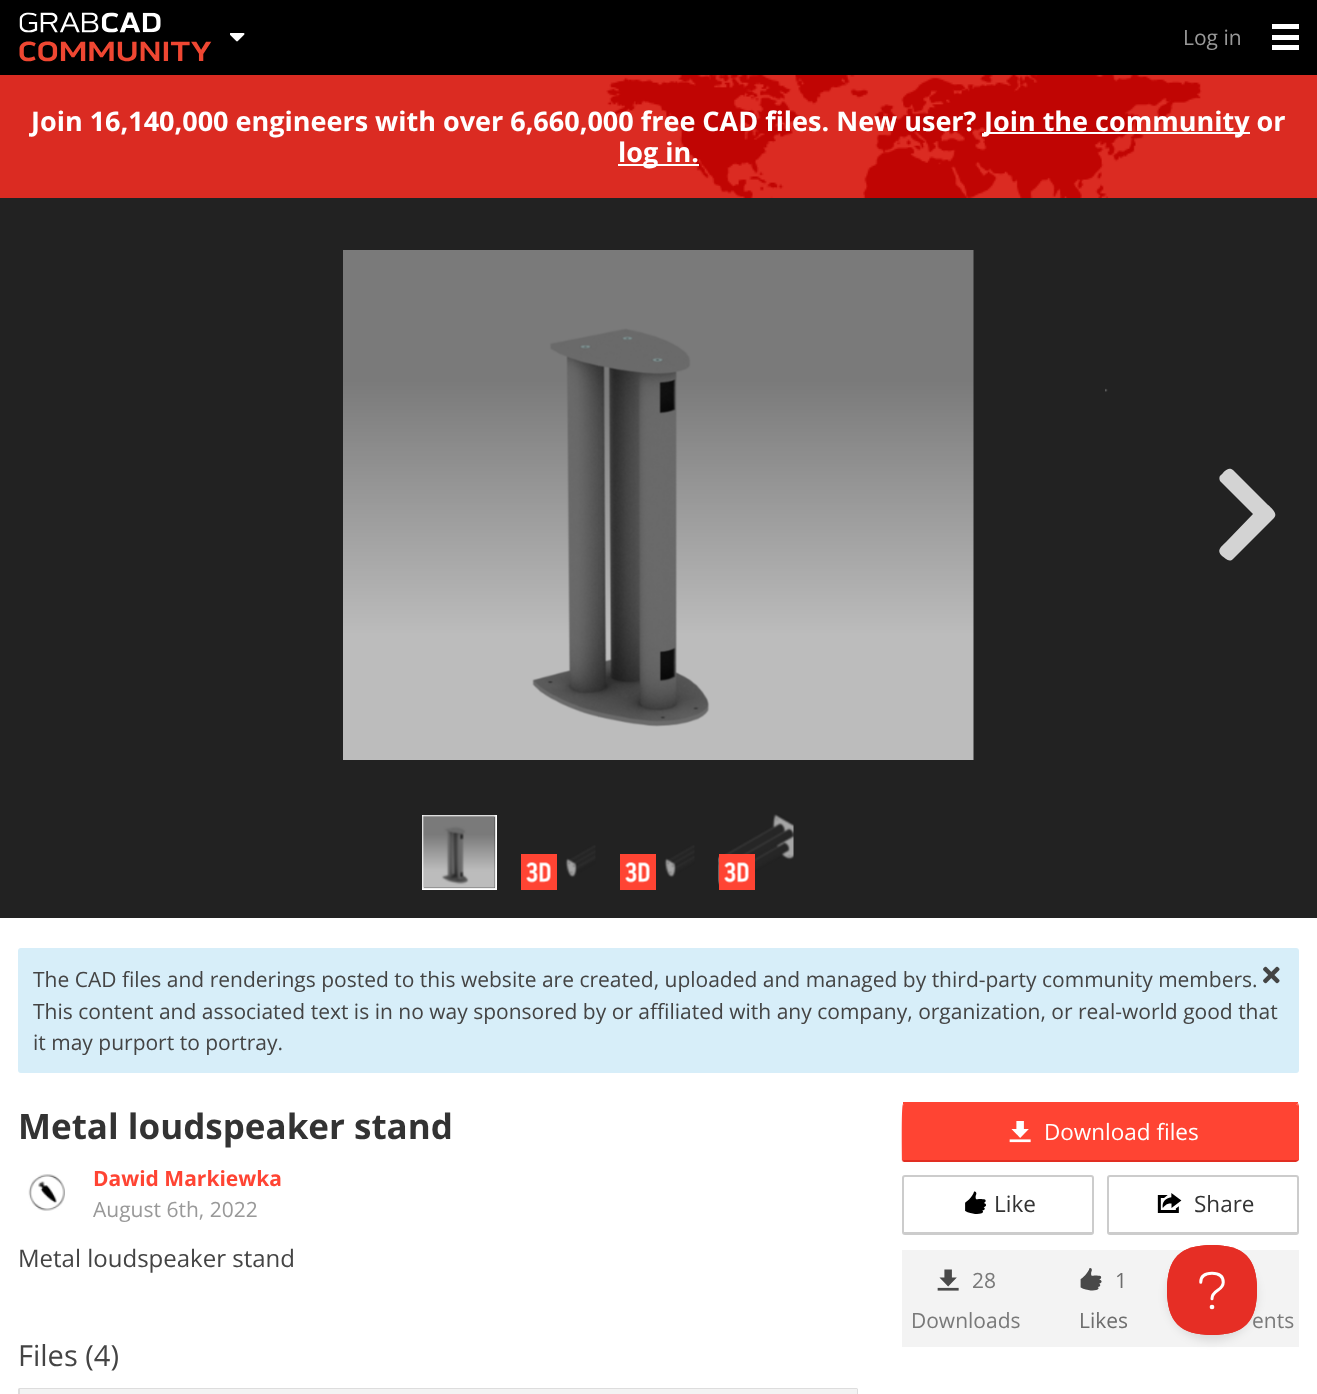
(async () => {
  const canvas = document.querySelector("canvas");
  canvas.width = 1317;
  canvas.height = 1394;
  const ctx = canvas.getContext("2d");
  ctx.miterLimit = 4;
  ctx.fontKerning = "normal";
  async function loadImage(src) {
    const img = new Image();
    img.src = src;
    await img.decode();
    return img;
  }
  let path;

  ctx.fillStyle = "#000000";
  ctx.fillRect(0, 0, 1317, 1394);
  ctx.drawImage(await loadImage("img/1.png"), 19, 12, 193, 50);
  ctx.drawImage(await loadImage("img/2.png"), 230, 33, 15, 9);
  for (const [x, y, w, h, color] of [
    [1272, 35, 27, 5, "#ffffff"],
    [1272, 24, 27, 5, "#ffffff"],
    [1272, 45, 27, 5, "#ffffff"],
    [0, 918, 1317, 476, "#ffffff"],
    [0, 75, 1317, 123, "#db2b22"],
  ]) {
    ctx.fillStyle = color;
    ctx.fillRect(x, y, w, h);
  }
  ctx.drawImage(await loadImage("img/3.png"), 594, 75, 608, 123);
  for (const [x, y, w, h, color] of [
    [984, 132, 266, 2, "#ffffff"],
    [618, 164, 81, 2, "#ffffff"],
    [0, 198, 1317, 720, "#222222"],
  ]) {
    ctx.fillStyle = color;
    ctx.fillRect(x, y, w, h);
  }
  ctx.drawImage(await loadImage("img/4.png"), 343, 250, 631, 510);
  ctx.drawImage(await loadImage("img/5.png"), 1105, 388, 3, 4);
  ctx.fillStyle = "#d3d3d3";
  path = new Path2D("M1274 518L1233 559C1229 563 1225 558 1222 556C1216 550 1221 547 1226 542L1253 514L1220 481C1219 479 1219 476 1221 475C1224 472 1228 466 1233 470L1267 504C1269 506 1279 513 1274 518Z");
  ctx.fill(path);
  ctx.strokeStyle = "#ffffff";
  ctx.lineWidth = 2;
  ctx.strokeRect(423, 816, 73, 73);
  ctx.drawImage(await loadImage("img/6.png"), 422, 815, 74, 74);
  ctx.fillStyle = "#ff4433";
  ctx.fillRect(521, 854, 36, 36);
  ctx.drawImage(await loadImage("img/7.png"), 526, 862, 25, 21);
  ctx.drawImage(await loadImage("img/8.png"), 565, 845, 31, 33);
  ctx.fillRect(620, 854, 36, 36);
  ctx.drawImage(await loadImage("img/7.png"), 625, 862, 25, 21);
  ctx.drawImage(await loadImage("img/9.png"), 664, 845, 31, 33);
  ctx.drawImage(await loadImage("img/10.png"), 718, 814, 76, 72);
  ctx.fillRect(719, 854, 36, 36);
  ctx.drawImage(await loadImage("img/7.png"), 724, 862, 25, 21);
  ctx.fillStyle = "#d7eef9";
  ctx.beginPath();
  ctx.roundRect(18, 948, 1281, 125, 3);
  ctx.fill();
  ctx.drawImage(await loadImage("img/11.png"), 1263, 966, 17, 18);
  ctx.drawImage(await loadImage("img/12.png"), 28, 1174, 37, 37);
  ctx.fillStyle = "#ff4433";
  path = new Path2D("M904 1104H1296C1297 1104 1298 1105 1298 1106V1160H903V1106C903 1105 904 1104 904 1104Z");
  ctx.fill(path);
  path = new Path2D("M904 1104V1105L903 1104V1102H1298V1103L1297 1104H1296Z");
  ctx.fill(path);
  path = new Path2D("M1299 1160V1106L1298 1103L1297 1104L1298 1106V1160V1161Z");
  ctx.fill(path);
  ctx.fillStyle = "#e22e22";
  path = new Path2D("M1298 1161L1296 1162H904L902 1161L903 1160H1298Z");
  ctx.fill(path);
  ctx.fillStyle = "#ff4433";
  path = new Path2D("M902 1161C902 1160 901 1106 903 1104L904 1105L903 1106V1160Z");
  ctx.fill(path);
  ctx.drawImage(await loadImage("img/13.png"), 1009, 1121, 22, 22);
  ctx.beginPath();
  ctx.roundRect(903, 1176, 190, 58, 2);
  ctx.strokeStyle = "#cccccc";
  ctx.stroke();
  ctx.fillStyle = "#cccccc";
  ctx.fillRect(903, 1232, 189, 1);
  ctx.drawImage(await loadImage("img/14.png"), 965, 1191, 21, 23);
  ctx.beginPath();
  ctx.roundRect(1108, 1176, 190, 58, 2);
  ctx.stroke();
  ctx.fillRect(1109, 1232, 189, 1);
  ctx.drawImage(await loadImage("img/15.png"), 1157, 1193, 25, 20);
  ctx.fillStyle = "#f3f3f3";
  ctx.fillRect(902, 1250, 397, 97);
  ctx.drawImage(await loadImage("img/16.png"), 937, 1269, 22, 22);
  ctx.drawImage(await loadImage("img/17.png"), 1080, 1268, 22, 23);
  ctx.beginPath();
  ctx.roundRect(19, 1389, 838, 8, 0.5);
  ctx.strokeStyle = "#dddddd";
  ctx.stroke();
  ctx.fillRect(20, 1389, 837, 5);
  ctx.fillStyle = "rgba(0, 0, 0, 0.1)";
  ctx.filter = "blur(5px)";
  ctx.beginPath();
  ctx.roundRect(1167, 1251, 90, 90, 45);
  ctx.fill();
  ctx.filter = "none";
  ctx.font = "21px Open Sans";
  ctx.fillStyle = "#999999";
  ctx.fillText("Log in", 1183, 45);
  ctx.font = "bold 27px Open Sans";
  ctx.fillStyle = "#ffffff";
  for (const [text, x, y] of [
    ["Join 16,140,000 engineers with over 6,660,000 free CAD files. New user?", 31, 131],
    ["Join the community or", 984, 131],
    ["log in.", 618, 162],
  ]) {
    ctx.fillText(text, x, y);
  }
  ctx.font = "21px Open Sans";
  ctx.fillStyle = "#444444";
  for (const [text, x, y] of [
    ["The CAD files and renderings posted to this website are created, uploaded and managed by third-party community members.", 33, 987],
    ["This content and associated text is in no way sponsored by or affiliated with any company, organization, or real-world good that", 33, 1019],
    ["it may purport to portray.", 33, 1050],
  ]) {
    ctx.fillText(text, x, y);
  }
  ctx.font = "bold 35px Open Sans";
  ctx.fillStyle = "#333333";
  ctx.fillText("Metal loudspeaker stand", 18, 1139);
  ctx.font = "bold 21px Open Sans";
  ctx.fillStyle = "#ff4433";
  ctx.fillText("Dawid Markiewka", 93, 1186);
  ctx.font = "21px Open Sans";
  ctx.fillStyle = "#999999";
  ctx.fillText("August 6th, 2022", 93, 1217);
  ctx.font = "24px Open Sans";
  ctx.fillStyle = "#444444";
  ctx.fillText("Metal loudspeaker stand", 18, 1267);
  ctx.font = "22.5px Open Sans";
  ctx.fillStyle = "#ffffff";
  ctx.fillText("Download files", 1044, 1140);
  ctx.fillStyle = "#333333";
  ctx.fillText("Like", 994, 1212);
  ctx.fillText("Share", 1194, 1212);
  ctx.font = "21px Open Sans";
  ctx.fillStyle = "#797979";
  ctx.fillText("28", 972, 1288);
  ctx.fillText("Downloads", 911, 1328);
  ctx.fillStyle = "#6d6d6d";
  ctx.fillText("1", 1115, 1288);
  ctx.fillText("Likes", 1079, 1328);
  ctx.fillStyle = "#797979";
  ctx.fillText("ents", 1252, 1328);
  ctx.font = "29px Open Sans";
  ctx.fillStyle = "#444444";
  ctx.fillText("Files (4)", 18, 1366);
  ctx.drawImage(await loadImage("img/18.png"), 1167, 1245, 90, 90);
})();
